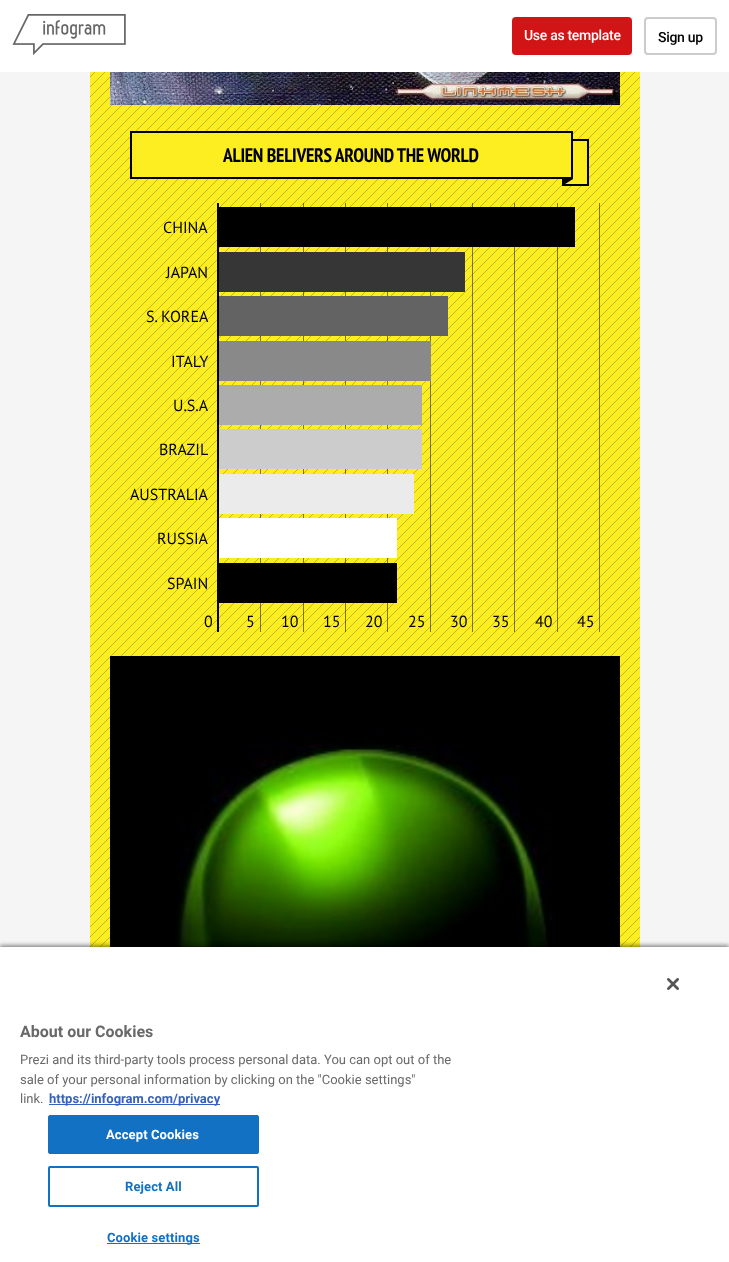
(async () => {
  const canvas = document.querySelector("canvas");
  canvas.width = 729;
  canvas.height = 1262;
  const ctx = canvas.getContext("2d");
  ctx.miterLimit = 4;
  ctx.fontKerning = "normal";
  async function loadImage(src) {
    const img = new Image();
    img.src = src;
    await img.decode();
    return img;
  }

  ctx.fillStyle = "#f5f5f6";
  ctx.fillRect(0, 0, 729, 1262);
  ctx.fillStyle = "#ffffff";
  ctx.fillRect(0, 0, 729, 72);
  ctx.drawImage(await loadImage("img/1.png"), 12, 14, 114, 41);
  ctx.fillStyle = "#d11416";
  ctx.beginPath();
  ctx.roundRect(512, 17, 120, 38, 4);
  ctx.fill();
  ctx.beginPath();
  ctx.roundRect(645, 18, 71, 36, 3);
  ctx.strokeStyle = "#cccccc";
  ctx.lineWidth = 2;
  ctx.stroke();
  ctx.fillStyle = "#fcee21";
  ctx.fillRect(90, 72, 550, 875);
  ctx.drawImage(await loadImage("img/2.png"), 90, 72, 550, 875);
  ctx.drawImage(await loadImage("img/3.png"), 110, 72, 510, 33);
  ctx.beginPath();
  ctx.rect(131, 132, 441, 46);
  ctx.fill();
  ctx.strokeStyle = "#000000";
  ctx.stroke();
  ctx.drawImage(await loadImage("img/4.png"), 562, 139, 27, 47);
  for (const [x, y, w, h, color] of [
    [260, 203, 1, 429, "rgba(0, 0, 0, 0.5)"],
    [303, 203, 1, 429, "rgba(0, 0, 0, 0.5)"],
    [345, 203, 1, 429, "rgba(0, 0, 0, 0.5)"],
    [387, 203, 1, 429, "rgba(0, 0, 0, 0.5)"],
    [430, 203, 1, 429, "rgba(0, 0, 0, 0.5)"],
    [472, 203, 1, 429, "rgba(0, 0, 0, 0.5)"],
    [514, 203, 1, 429, "rgba(0, 0, 0, 0.5)"],
    [557, 203, 1, 429, "rgba(0, 0, 0, 0.5)"],
    [219, 207, 356, 40, "#000000"],
    [219, 252, 246, 40, "#363636"],
    [219, 296, 229, 40, "#636363"],
    [219, 341, 212, 40, "#898989"],
    [217, 203, 2, 429, "#000000"],
    [219, 385, 203, 40, "#acacac"],
    [219, 429, 203, 40, "#cccccc"],
    [219, 474, 195, 40, "#ebebeb"],
    [219, 518, 178, 40, "#ffffff"],
    [219, 563, 178, 40, "#000000"],
    [599, 203, 1, 429, "rgba(0, 0, 0, 0.5)"],
  ]) {
    ctx.fillStyle = color;
    ctx.fillRect(x, y, w, h);
  }
  ctx.drawImage(await loadImage("img/5.png"), 110, 656, 510, 291);
  ctx.fillStyle = "rgba(0, 0, 0, 0.35)";
  ctx.filter = "blur(2px)";
  ctx.beginPath();
  ctx.rect(0, 945, 729, 317);
  ctx.fill();
  ctx.filter = "none";
  ctx.fillStyle = "rgba(0, 0, 0, 0.2)";
  ctx.filter = "blur(2px)";
  ctx.beginPath();
  ctx.rect(0, 947, 729, 315);
  ctx.fill();
  ctx.filter = "none";
  ctx.fillStyle = "#ffffff";
  ctx.fillRect(0, 947, 729, 315);
  ctx.drawImage(await loadImage("img/6.png"), 667, 978, 12, 12);
  ctx.fillStyle = "#3860be";
  ctx.fillRect(49, 1104, 171, 1);
  ctx.fillStyle = "#1371c3";
  ctx.beginPath();
  ctx.roundRect(48.5, 1115.5, 210, 38, 1.5);
  ctx.fill();
  ctx.strokeStyle = "#1371c3";
  ctx.lineWidth = 1;
  ctx.stroke();
  ctx.beginPath();
  ctx.roundRect(49, 1167, 209, 39, 1);
  ctx.lineWidth = 2;
  ctx.stroke();
  ctx.fillRect(107, 1243, 93, 1);
  ctx.letterSpacing = "-0.3px";
  ctx.font = "500 14px Roboto";
  ctx.fillStyle = "#ffffff";
  ctx.fillText("Use as template", 524, 40);
  ctx.fillStyle = "#000000";
  ctx.fillText("Sign up", 658, 42);
  ctx.font = "bold 19.5px PT Sans Narrow";
  ctx.fillText("ALIEN BELIVERS AROUND THE WORLD", 223, 162);
  ctx.letterSpacing = "0px";
  ctx.font = "16px PT Sans";
  for (const [text, x, y] of [
    ["CHINA", 163, 233],
    ["JAPAN", 166, 278],
    ["S. KOREA", 146, 322],
    ["ITALY", 171, 367],
    ["U.S.A", 173, 411],
    ["BRAZIL", 159, 455],
    ["AUSTRALIA", 130, 500],
    ["RUSSIA", 157, 544],
    ["SPAIN", 167, 589],
    ["0", 204, 627],
    ["5", 246, 627],
    ["10", 281, 627],
    ["15", 323, 627],
    ["20", 365, 627],
    ["25", 408, 627],
    ["30", 450, 627],
    ["35", 492, 627],
    ["40", 535, 627],
    ["45", 577, 627],
  ]) {
    ctx.fillText(text, x, y);
  }
  ctx.font = "bold 16px Roboto";
  ctx.fillStyle = "#696969";
  ctx.fillText("About our Cookies", 20, 1037);
  ctx.font = "13px Roboto";
  for (const [text, x, y] of [
    ["Prezi and its third-party tools process personal data. You can opt out of the", 20, 1064],
    ["sale of your personal information by clicking on the \"Cookie settings\"", 20, 1084],
    ["link.", 20, 1103],
  ]) {
    ctx.fillText(text, x, y);
  }
  ctx.font = "bold 13px Roboto";
  ctx.fillStyle = "#3860be";
  ctx.fillText("https://infogram.com/privacy", 49, 1103);
  ctx.letterSpacing = "0.1px";
  ctx.fillStyle = "#ffffff";
  ctx.fillText("Accept Cookies", 106, 1139);
  ctx.fillStyle = "#1371c3";
  ctx.fillText("Reject All", 125, 1191);
  ctx.fillText("Cookie settings", 107, 1242);
})();
